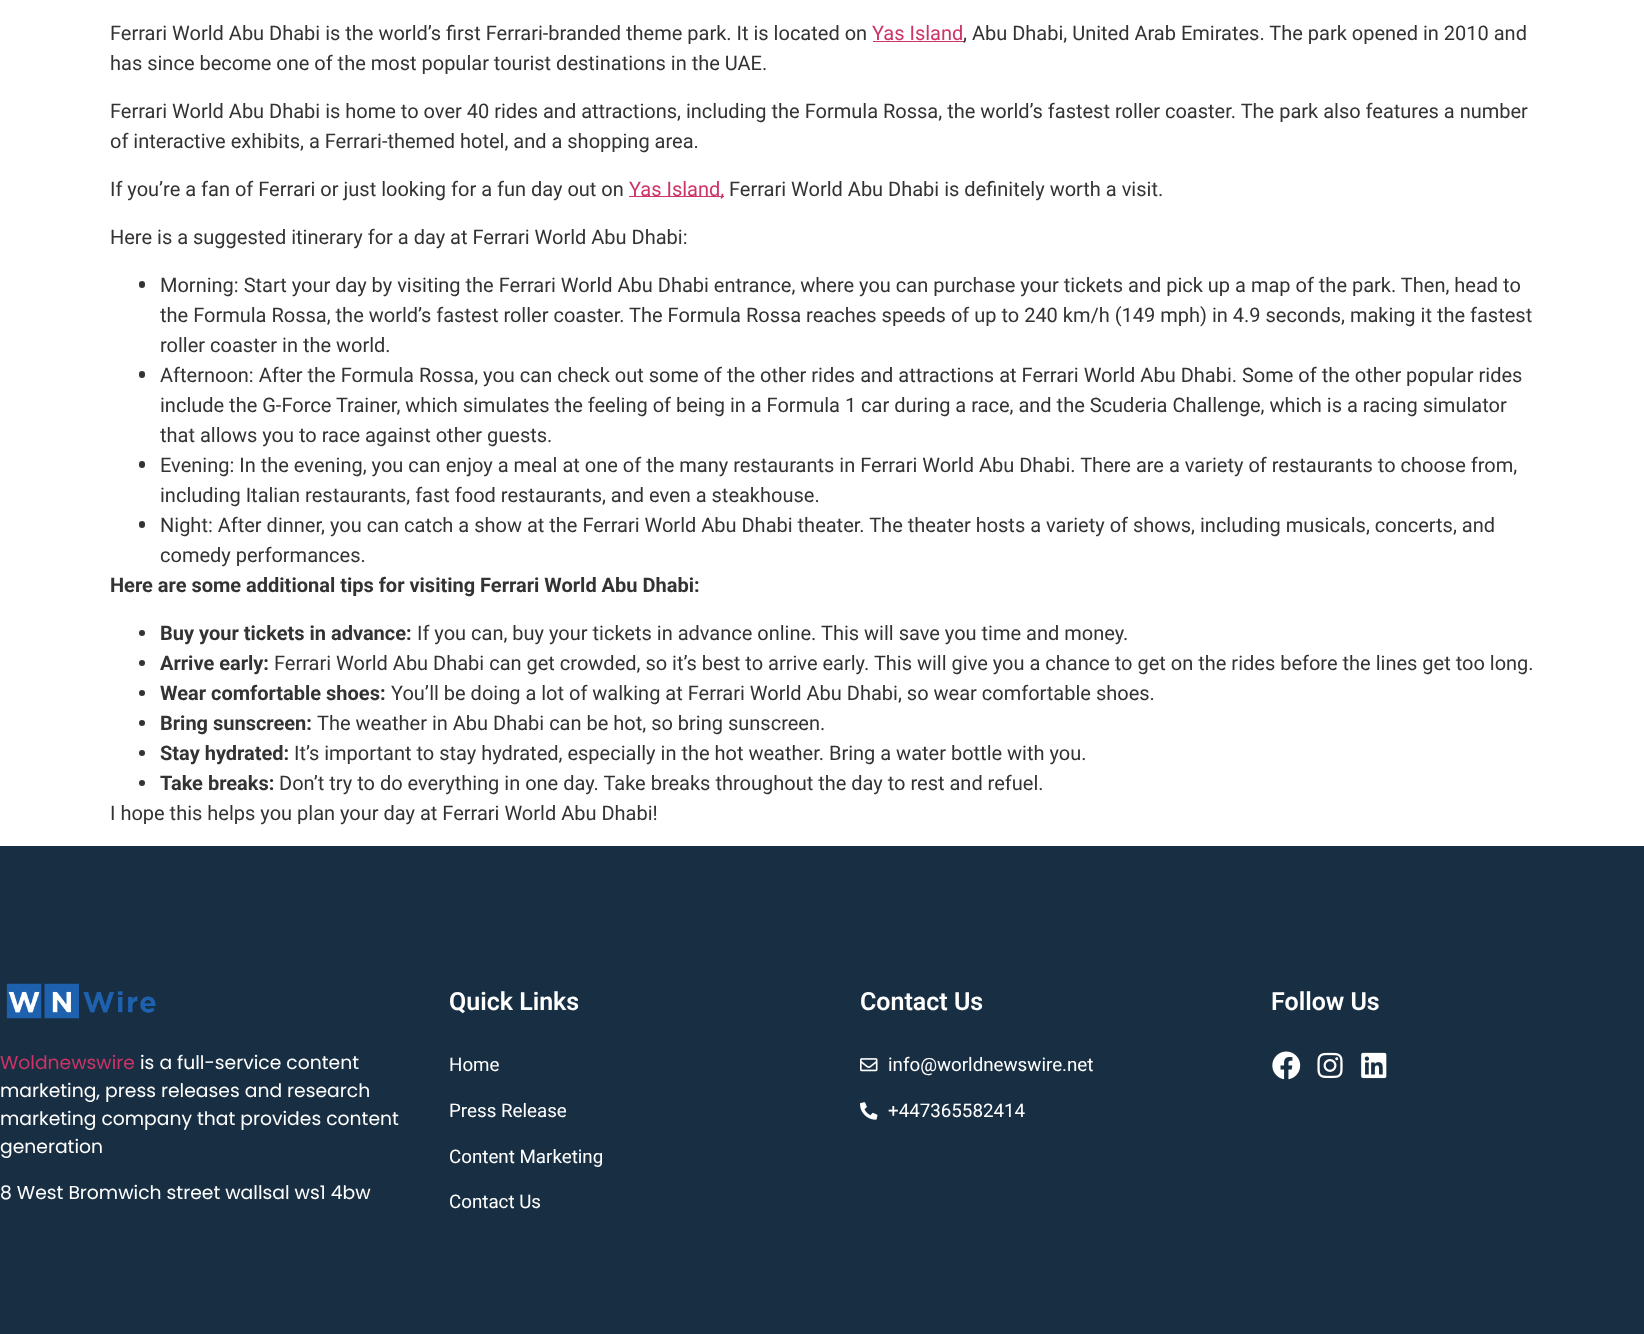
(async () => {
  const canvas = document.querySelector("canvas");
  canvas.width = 1644;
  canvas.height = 1334;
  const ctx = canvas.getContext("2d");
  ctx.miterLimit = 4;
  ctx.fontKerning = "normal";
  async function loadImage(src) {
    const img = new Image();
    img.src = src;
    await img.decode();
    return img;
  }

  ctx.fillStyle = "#ffffff";
  ctx.fillRect(0, 0, 1644, 1334);
  ctx.fillStyle = "#cc3366";
  ctx.fillRect(873, 41, 91, 1);
  ctx.fillRect(629, 196, 95, 1);
  ctx.fillStyle = "#333333";
  ctx.beginPath();
  ctx.roundRect(139, 281, 6, 7, 3);
  ctx.fill();
  ctx.beginPath();
  ctx.roundRect(139, 371, 6, 7, 3);
  ctx.fill();
  ctx.beginPath();
  ctx.roundRect(139, 461, 6, 7, 3);
  ctx.fill();
  ctx.beginPath();
  ctx.roundRect(139, 521, 6, 7, 3);
  ctx.fill();
  ctx.beginPath();
  ctx.arc(142, 633, 3, 0, Math.PI * 2);
  ctx.fill();
  ctx.beginPath();
  ctx.arc(142, 663, 3, 0, Math.PI * 2);
  ctx.fill();
  ctx.beginPath();
  ctx.arc(142, 693, 3, 0, Math.PI * 2);
  ctx.fill();
  ctx.beginPath();
  ctx.arc(142, 723, 3, 0, Math.PI * 2);
  ctx.fill();
  ctx.beginPath();
  ctx.arc(142, 753, 3, 0, Math.PI * 2);
  ctx.fill();
  ctx.beginPath();
  ctx.arc(142, 783, 3, 0, Math.PI * 2);
  ctx.fill();
  ctx.fillStyle = "#182f43";
  ctx.fillRect(0, 846, 1644, 488);
  ctx.drawImage(await loadImage("img/1.png"), 6, 983, 150, 36);
  ctx.drawImage(await loadImage("img/2.png"), 860, 1058, 18, 14);
  ctx.drawImage(await loadImage("img/3.png"), 860, 1102, 18, 18);
  ctx.drawImage(await loadImage("img/4.png"), 1272, 1051, 29, 29);
  ctx.drawImage(await loadImage("img/5.png"), 1317, 1052, 26, 27);
  ctx.drawImage(await loadImage("img/6.png"), 1361, 1052, 26, 27);
  ctx.font = "20px Roboto";
  ctx.fillStyle = "#333333";
  ctx.fillText("Ferrari World Abu Dhabi is the world’s first Ferrari-branded theme park. It is located on", 110, 40);
  ctx.fillStyle = "#cc3366";
  ctx.fillText("Yas Island", 872, 40);
  ctx.fillStyle = "#333333";
  for (const [text, x, y] of [
    [", Abu Dhabi, United Arab Emirates. The park opened in 2010 and", 963, 40],
    ["has since become one of the most popular tourist destinations in the UAE.", 110, 70],
    ["Ferrari World Abu Dhabi is home to over 40 rides and attractions, including the Formula Rossa, the world’s fastest roller coaster. The park also features a number", 110, 118],
    ["of interactive exhibits, a Ferrari-themed hotel, and a shopping area.", 110, 148],
    ["If you’re a fan of Ferrari or just looking for a fun day out on", 110, 196],
  ]) {
    ctx.fillText(text, x, y);
  }
  ctx.fillStyle = "#cc3366";
  ctx.fillText("Yas Island,", 629, 196);
  ctx.fillStyle = "#333333";
  for (const [text, x, y] of [
    ["Ferrari World Abu Dhabi is definitely worth a visit.", 729, 196],
    ["Here is a suggested itinerary for a day at Ferrari World Abu Dhabi:", 110, 244],
    ["Morning: Start your day by visiting the Ferrari World Abu Dhabi entrance, where you can purchase your tickets and pick up a map of the park. Then, head to", 160, 292],
    ["the Formula Rossa, the world’s fastest roller coaster. The Formula Rossa reaches speeds of up to 240 km/h (149 mph) in 4.9 seconds, making it the fastest", 160, 322],
    ["roller coaster in the world.", 160, 352],
    ["Afternoon: After the Formula Rossa, you can check out some of the other rides and attractions at Ferrari World Abu Dhabi. Some of the other popular rides", 160, 382],
    ["include the G-Force Trainer, which simulates the feeling of being in a Formula 1 car during a race, and the Scuderia Challenge, which is a racing simulator", 160, 412],
    ["that allows you to race against other guests.", 160, 442],
    ["Evening: In the evening, you can enjoy a meal at one of the many restaurants in Ferrari World Abu Dhabi. There are a variety of restaurants to choose from,", 160, 472],
    ["including Italian restaurants, fast food restaurants, and even a steakhouse.", 160, 502],
    ["Night: After dinner, you can catch a show at the Ferrari World Abu Dhabi theater. The theater hosts a variety of shows, including musicals, concerts, and", 160, 532],
    ["comedy performances.", 160, 562],
  ]) {
    ctx.fillText(text, x, y);
  }
  ctx.font = "bold 20px Roboto";
  ctx.fillText("Here are some additional tips for visiting Ferrari World Abu Dhabi:", 110, 592);
  ctx.fillText("Buy your tickets in advance:", 160, 640);
  ctx.font = "20px Roboto";
  ctx.fillText("If you can, buy your tickets in advance online. This will save you time and money.", 417, 640);
  ctx.font = "bold 20px Roboto";
  ctx.fillText("Arrive early:", 160, 670);
  ctx.font = "20px Roboto";
  ctx.fillText("Ferrari World Abu Dhabi can get crowded, so it’s best to arrive early. This will give you a chance to get on the rides before the lines get too long.", 274, 670);
  ctx.font = "bold 20px Roboto";
  ctx.fillText("Wear comfortable shoes:", 160, 700);
  ctx.font = "20px Roboto";
  ctx.fillText("You’ll be doing a lot of walking at Ferrari World Abu Dhabi, so wear comfortable shoes.", 391, 700);
  ctx.font = "bold 20px Roboto";
  ctx.fillText("Bring sunscreen:", 160, 730);
  ctx.font = "20px Roboto";
  ctx.fillText("The weather in Abu Dhabi can be hot, so bring sunscreen.", 317, 730);
  ctx.font = "bold 20px Roboto";
  ctx.fillText("Stay hydrated:", 160, 760);
  ctx.font = "20px Roboto";
  ctx.fillText("It’s important to stay hydrated, especially in the hot weather. Bring a water bottle with you.", 294, 760);
  ctx.font = "bold 20px Roboto";
  ctx.fillText("Take breaks:", 160, 790);
  ctx.font = "20px Roboto";
  ctx.fillText("Don’t try to do everything in one day. Take breaks throughout the day to rest and refuel.", 279, 790);
  ctx.fillText("I hope this helps you plan your day at Ferrari World Abu Dhabi!", 110, 820);
  ctx.font = "18.75px Poppins";
  ctx.fillStyle = "#cc3366";
  ctx.fillText("Woldnewswire", 0, 1069);
  ctx.fillStyle = "#ffffff";
  for (const [text, x, y] of [
    ["is a full-service content", 140, 1069],
    ["marketing, press releases and research", 0, 1097],
    ["marketing company that provides content", 0, 1125],
    ["generation", 0, 1153],
    ["8 West Bromwich street wallsal ws1 4bw", 0, 1199],
  ]) {
    ctx.fillText(text, x, y);
  }
  ctx.font = "600 25px Roboto";
  ctx.fillText("Quick Links", 449, 1010);
  ctx.font = "18.75px Roboto";
  for (const [text, x, y] of [
    ["Home", 449, 1071],
    ["Press Release", 449, 1117],
    ["Content Marketing", 449, 1163],
    ["Contact Us", 449, 1208],
  ]) {
    ctx.fillText(text, x, y);
  }
  ctx.font = "600 25px Roboto";
  ctx.fillText("Contact Us", 860, 1010);
  ctx.font = "18.75px Roboto";
  ctx.fillText("info@worldnewswire.net", 888, 1071);
  ctx.fillText("+447365582414", 888, 1117);
  ctx.font = "600 25px Roboto";
  ctx.fillText("Follow Us", 1271, 1010);
})();
